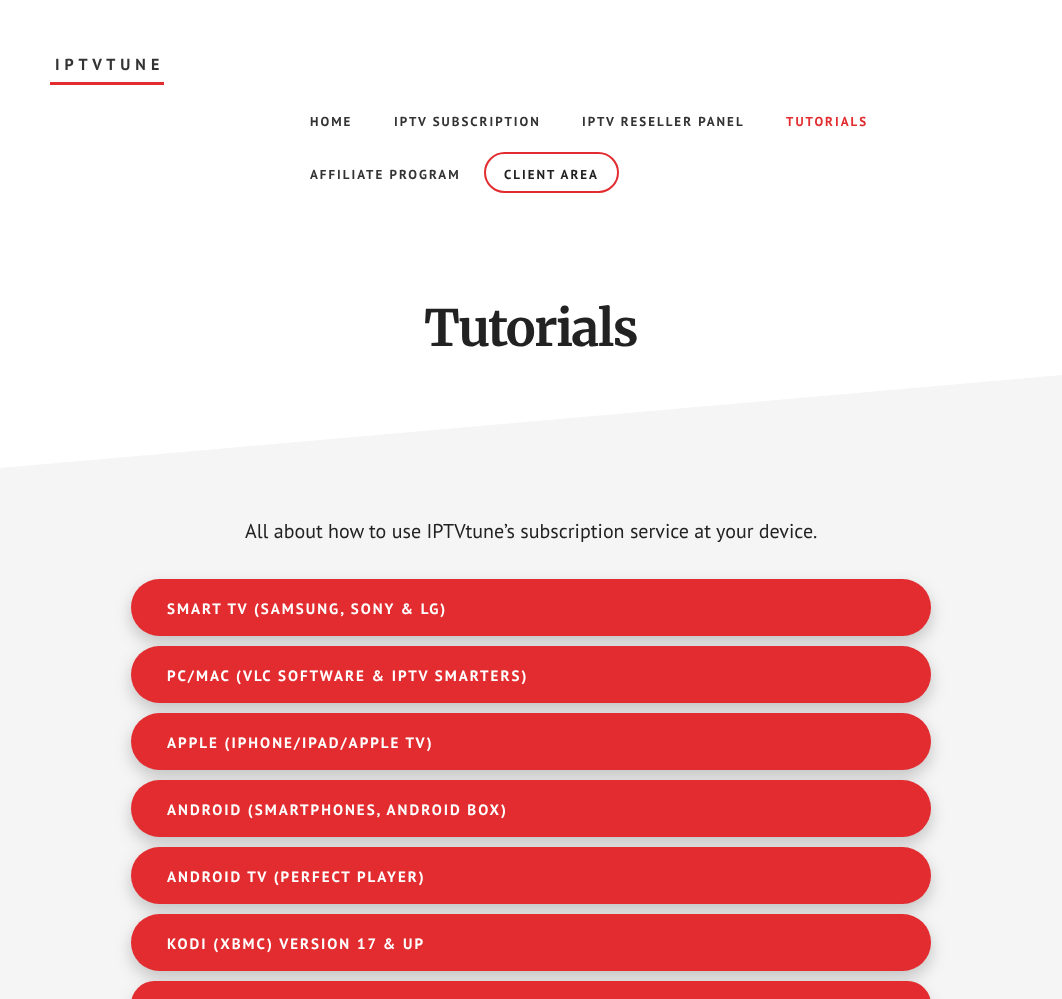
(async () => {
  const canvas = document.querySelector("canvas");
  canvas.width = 1062;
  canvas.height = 999;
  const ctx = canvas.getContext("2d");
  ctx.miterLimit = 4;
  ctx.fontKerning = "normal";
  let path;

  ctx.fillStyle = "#ffffff";
  ctx.fillRect(0, 0, 1062, 999);
  ctx.fillStyle = "#e22c2f";
  ctx.fillRect(50, 82, 114, 3);
  ctx.beginPath();
  ctx.roundRect(485, 153, 133, 39, 19.5);
  ctx.strokeStyle = "#e22c2f";
  ctx.lineWidth = 2;
  ctx.stroke();
  ctx.fillStyle = "#f5f5f5";
  path = new Path2D("M0 468L1062 375V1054L0 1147Z");
  ctx.fill(path);
  ctx.fillStyle = "rgba(0, 0, 0, 0.2)";
  ctx.filter = "blur(8px)";
  ctx.beginPath();
  ctx.roundRect(131, 586, 800, 57, 28.5);
  ctx.fill();
  ctx.filter = "none";
  ctx.fillStyle = "#e22c2f";
  ctx.beginPath();
  ctx.roundRect(131, 579, 800, 57, 28.5);
  ctx.fill();
  ctx.fillStyle = "rgba(0, 0, 0, 0.2)";
  ctx.filter = "blur(8px)";
  ctx.beginPath();
  ctx.roundRect(131, 653, 800, 57, 28.5);
  ctx.fill();
  ctx.filter = "none";
  ctx.fillStyle = "#e22c2f";
  ctx.beginPath();
  ctx.roundRect(131, 646, 800, 57, 28.5);
  ctx.fill();
  ctx.fillStyle = "rgba(0, 0, 0, 0.2)";
  ctx.filter = "blur(8px)";
  ctx.beginPath();
  ctx.roundRect(131, 720, 800, 57, 28.5);
  ctx.fill();
  ctx.filter = "none";
  ctx.fillStyle = "#e22c2f";
  ctx.beginPath();
  ctx.roundRect(131, 713, 800, 57, 28.5);
  ctx.fill();
  ctx.fillStyle = "rgba(0, 0, 0, 0.2)";
  ctx.filter = "blur(8px)";
  ctx.beginPath();
  ctx.roundRect(131, 787, 800, 57, 28.5);
  ctx.fill();
  ctx.filter = "none";
  ctx.fillStyle = "#e22c2f";
  ctx.beginPath();
  ctx.roundRect(131, 780, 800, 57, 28.5);
  ctx.fill();
  ctx.fillStyle = "rgba(0, 0, 0, 0.2)";
  ctx.filter = "blur(8px)";
  ctx.beginPath();
  ctx.roundRect(131, 854, 800, 57, 28.5);
  ctx.fill();
  ctx.filter = "none";
  ctx.fillStyle = "#e22c2f";
  ctx.beginPath();
  ctx.roundRect(131, 847, 800, 57, 28.5);
  ctx.fill();
  ctx.fillStyle = "rgba(0, 0, 0, 0.2)";
  ctx.filter = "blur(8px)";
  ctx.beginPath();
  ctx.roundRect(131, 921, 800, 57, 28.5);
  ctx.fill();
  ctx.filter = "none";
  ctx.fillStyle = "#e22c2f";
  ctx.beginPath();
  ctx.roundRect(131, 914, 800, 57, 28.5);
  ctx.fill();
  ctx.fillStyle = "rgba(0, 0, 0, 0.2)";
  ctx.filter = "blur(8px)";
  ctx.beginPath();
  ctx.roundRect(131, 988, 800, 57, 28.5);
  ctx.fill();
  ctx.filter = "none";
  ctx.fillStyle = "#e22c2f";
  ctx.beginPath();
  ctx.roundRect(131, 981, 800, 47, 28.5);
  ctx.fill();
  ctx.letterSpacing = "5px";
  ctx.font = "bold 16px PT Sans";
  ctx.fillStyle = "#333333";
  ctx.fillText("IPTVTUNE", 55, 70);
  ctx.letterSpacing = "2px";
  ctx.font = "bold 13px PT Sans";
  for (const [text, x, y] of [
    ["HOME", 310, 126],
    ["IPTV SUBSCRIPTION", 394, 126],
    ["IPTV RESELLER PANEL", 582, 126],
  ]) {
    ctx.fillText(text, x, y);
  }
  ctx.fillStyle = "#e22c2f";
  ctx.fillText("TUTORIALS", 786, 126);
  ctx.fillStyle = "#333333";
  ctx.fillText("AFFILIATE PROGRAM", 310, 179);
  ctx.fillStyle = "#222222";
  ctx.fillText("CLIENT AREA", 504, 179);
  ctx.letterSpacing = "-1.5px";
  ctx.font = "bold 50px Merriweather";
  ctx.fillText("Tutorials", 424, 346);
  ctx.letterSpacing = "0px";
  ctx.font = "20px PT Sans";
  ctx.fillText("All about how to use IPTVtune’s subscription service at your device.", 245, 538);
  ctx.letterSpacing = "2px";
  ctx.font = "bold 15px PT Sans";
  ctx.fillStyle = "#ffffff";
  for (const [text, x, y] of [
    ["SMART TV (SAMSUNG, SONY & LG)", 167, 614],
    ["PC/MAC (VLC SOFTWARE & IPTV SMARTERS)", 167, 681],
    ["APPLE (IPHONE/IPAD/APPLE TV)", 167, 748],
    ["ANDROID (SMARTPHONES, ANDROID BOX)", 167, 815],
    ["ANDROID TV (PERFECT PLAYER)", 167, 882],
    ["KODI (XBMC) VERSION 17 & UP", 167, 949],
  ]) {
    ctx.fillText(text, x, y);
  }
})();
